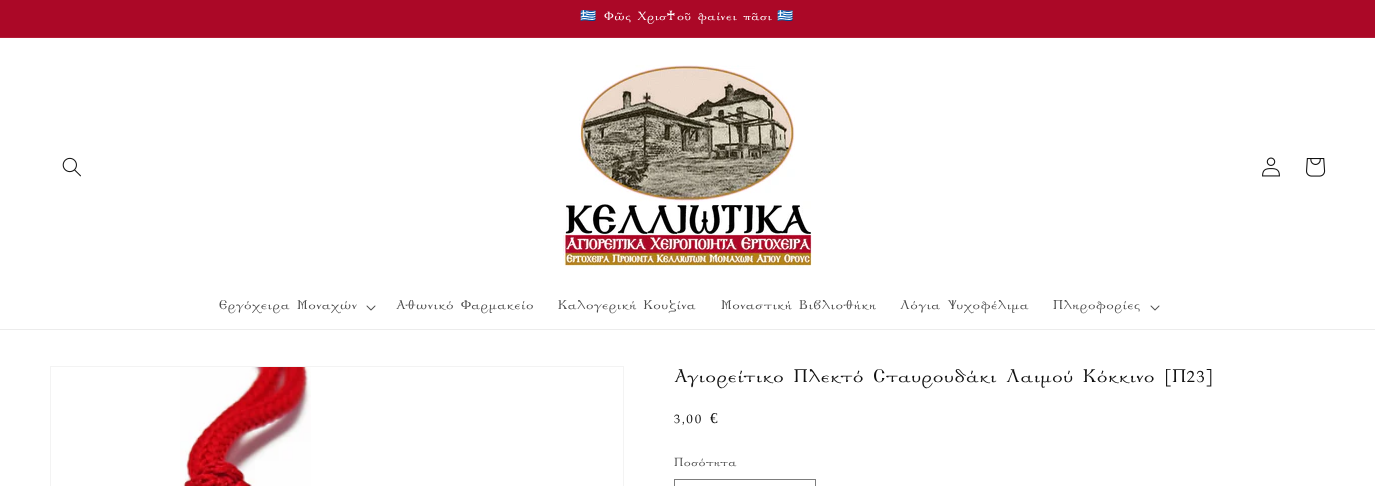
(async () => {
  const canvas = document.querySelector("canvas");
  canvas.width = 1375;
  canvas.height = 486;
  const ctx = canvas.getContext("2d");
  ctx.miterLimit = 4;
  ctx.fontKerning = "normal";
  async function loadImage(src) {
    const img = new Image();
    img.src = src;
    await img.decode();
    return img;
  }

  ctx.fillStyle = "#ffffff";
  ctx.fillRect(0, 0, 1375, 486);
  for (const [x, y, w, h, color] of [
    [0, 0, 1375, 37, "#ab0827"],
    [0, 37, 1375, 1, "#b21c38"],
    [0, 329, 1375, 1, "#ececec"],
  ]) {
    ctx.fillStyle = color;
    ctx.fillRect(x, y, w, h);
  }
  ctx.drawImage(await loadImage("img/1.png"), 62, 157, 19, 20);
  ctx.drawImage(await loadImage("img/2.png"), 563, 65, 249, 203);
  ctx.drawImage(await loadImage("img/3.png"), 1262, 157, 18, 20);
  ctx.drawImage(await loadImage("img/4.png"), 1306, 158, 20, 19);
  ctx.drawImage(await loadImage("img/5.png"), 366, 305, 10, 6);
  ctx.drawImage(await loadImage("img/5.png"), 1150, 305, 10, 6);
  ctx.strokeStyle = "#f3f3f3";
  ctx.strokeRect(50.5, 366.5, 573, 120);
  ctx.drawImage(await loadImage("img/6.png"), 180, 367, 131, 119);
  ctx.strokeStyle = "#7d7d7d";
  ctx.strokeRect(674.5, 479.5, 141, 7);
  ctx.letterSpacing = "0.6px";
  ctx.font = "13px Noto Color Emoji";
  ctx.fillStyle = "#ffffff";
  ctx.fillText("🇬🇷", 580, 20);
  ctx.font = "13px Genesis";
  ctx.fillText("Φῶς Χρισ", 604, 20);
  ctx.font = "13px DejaVu Sans";
  ctx.fillText("♰", 666, 20);
  ctx.font = "13px Genesis";
  ctx.fillText("οῦ φαίνει πᾶσι", 677, 20);
  ctx.font = "13px Noto Color Emoji";
  ctx.fillText("🇬🇷", 777, 20);
  ctx.font = "14px Genesis";
  ctx.fillStyle = "#4d4d4d";
  for (const [text, x, y] of [
    ["Εργόχειρα Μοναχών", 219, 309],
    ["Αθωνικό Φαρμακείο", 396, 309],
    ["Καλογερική Κουζίνα", 558, 309],
    ["Μοναστική Βιβλιοθήκη", 721, 309],
    ["Λόγια Ψυχοφέλιμα", 900, 309],
    ["Πληροφορίες", 1053, 309],
  ]) {
    ctx.fillText(text, x, y);
  }
  ctx.font = "20px Genesis";
  ctx.fillStyle = "#121212";
  ctx.fillText("Αγιορείτικο Πλεκτό Σταυρουδάκι Λαιμού Κόκκινο [Π23]", 674, 382);
  ctx.letterSpacing = "1.5px";
  ctx.font = "15px Genesis";
  ctx.fillText("3,00", 674, 423);
  ctx.font = "15px Liberation Serif";
  ctx.fillText("€", 710, 423);
  ctx.letterSpacing = "0.5px";
  ctx.font = "13px Genesis";
  ctx.fillStyle = "#4d4d4d";
  ctx.fillText("Ποσότητα", 674, 466);
})();
